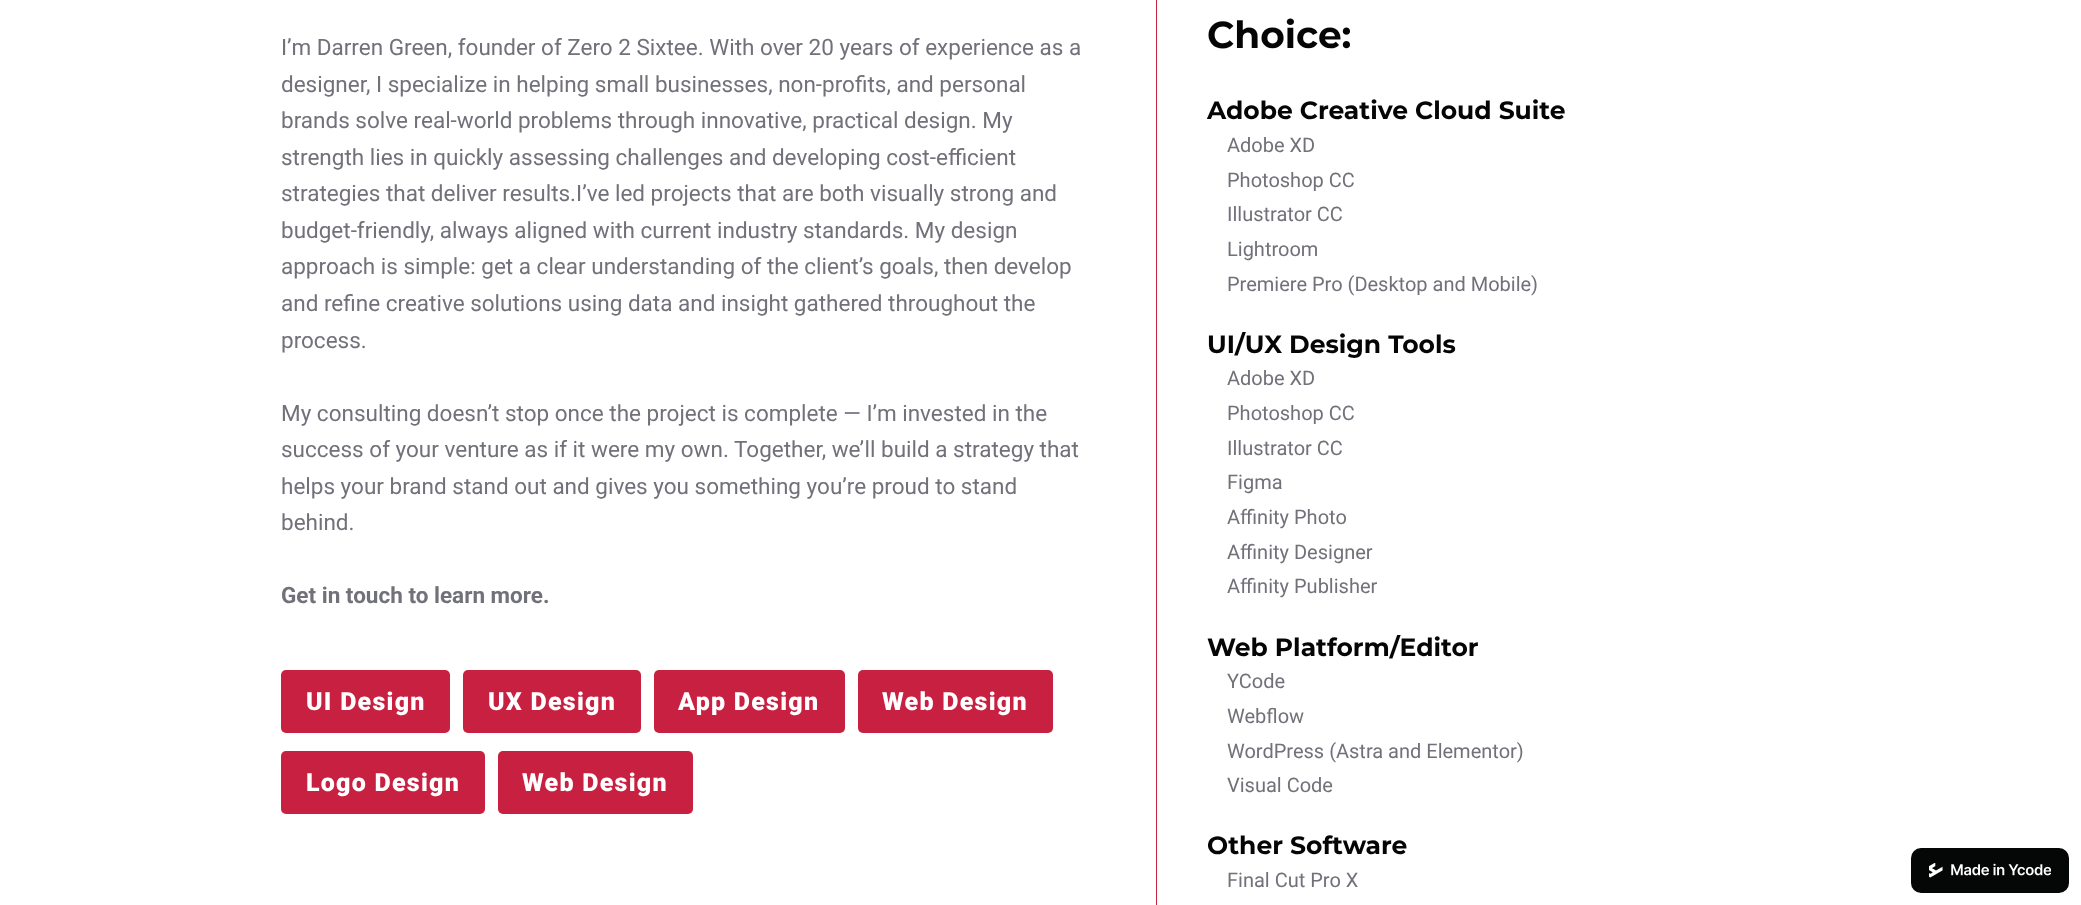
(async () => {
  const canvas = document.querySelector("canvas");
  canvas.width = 2081;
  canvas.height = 905;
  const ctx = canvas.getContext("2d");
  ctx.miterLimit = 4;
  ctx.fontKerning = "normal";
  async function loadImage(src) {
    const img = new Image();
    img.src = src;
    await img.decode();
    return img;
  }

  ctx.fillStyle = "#ffffff";
  ctx.fillRect(0, 0, 2081, 905);
  ctx.fillStyle = "#c82041";
  ctx.fillRect(1156, 0, 1, 905);
  ctx.beginPath();
  ctx.roundRect(281, 670, 169, 63, 5);
  ctx.fill();
  ctx.beginPath();
  ctx.roundRect(463, 670, 178, 63, 5);
  ctx.fill();
  ctx.beginPath();
  ctx.roundRect(654, 670, 191, 63, 5);
  ctx.fill();
  ctx.beginPath();
  ctx.roundRect(858, 670, 195, 63, 5);
  ctx.fill();
  ctx.beginPath();
  ctx.roundRect(281, 751, 204, 63, 5);
  ctx.fill();
  ctx.beginPath();
  ctx.roundRect(498, 751, 195, 63, 5);
  ctx.fill();
  ctx.fillStyle = "#050606";
  ctx.beginPath();
  ctx.roundRect(1911, 848, 158, 45, 10);
  ctx.fill();
  ctx.drawImage(await loadImage("img/1.png"), 1929, 863, 14, 15);
  ctx.drawImage(await loadImage("img/2.png"), 1951, 863, 100, 13);
  ctx.font = "22.5px Roboto";
  ctx.fillStyle = "#71717a";
  for (const [text, x, y] of [
    ["I’m Darren Green, founder of Zero 2 Sixtee. With over 20 years of experience as a", 281, 55],
    ["designer, I specialize in helping small businesses, non-profits, and personal", 281, 92],
    ["brands solve real-world problems through innovative, practical design. My", 281, 128],
    ["strength lies in quickly assessing challenges and developing cost-efficient", 281, 165],
    ["strategies that deliver results.I’ve led projects that are both visually strong and", 281, 201],
    ["budget-friendly, always aligned with current industry standards. My design", 281, 238],
    ["approach is simple: get a clear understanding of the client’s goals, then develop", 281, 274],
    ["and refine creative solutions using data and insight gathered throughout the", 281, 311],
    ["process.", 281, 348],
    ["My consulting doesn’t stop once the project is complete — I’m invested in the", 281, 421],
    ["success of your venture as if it were my own. Together, we’ll build a strategy that", 281, 457],
    ["helps your brand stand out and gives you something you’re proud to stand", 281, 494],
    ["behind.", 281, 530],
  ]) {
    ctx.fillText(text, x, y);
  }
  ctx.font = "bold 22.5px Roboto";
  ctx.fillText("Get in touch to learn more.", 281, 603);
  ctx.letterSpacing = "1.25px";
  ctx.font = "900 25px Roboto";
  ctx.fillStyle = "#ffffff";
  for (const [text, x, y] of [
    ["UI Design", 306, 710],
    ["UX Design", 488, 710],
    ["App Design", 678, 710],
    ["Web Design", 882, 710],
    ["Logo Design", 306, 791],
    ["Web Design", 522, 791],
  ]) {
    ctx.fillText(text, x, y);
  }
  ctx.letterSpacing = "0px";
  ctx.font = "bold 37.5px Montserrat";
  ctx.fillStyle = "#050505";
  ctx.fillText("Choice:", 1207, 48);
  ctx.font = "bold 25px Montserrat";
  ctx.fillText("Adobe Creative Cloud Suite", 1207, 119);
  ctx.font = "20px Roboto";
  ctx.fillStyle = "#71717a";
  for (const [text, x, y] of [
    ["Adobe XD", 1227, 152],
    ["Photoshop CC", 1227, 187],
    ["Illustrator CC", 1227, 221],
    ["Lightroom", 1227, 256],
    ["Premiere Pro (Desktop and Mobile)", 1227, 291],
  ]) {
    ctx.fillText(text, x, y);
  }
  ctx.font = "bold 25px Montserrat";
  ctx.fillStyle = "#050505";
  ctx.fillText("UI/UX Design Tools", 1207, 353);
  ctx.font = "20px Roboto";
  ctx.fillStyle = "#71717a";
  for (const [text, x, y] of [
    ["Adobe XD", 1227, 385],
    ["Photoshop CC", 1227, 420],
    ["Illustrator CC", 1227, 455],
    ["Figma", 1227, 489],
    ["Affinity Photo", 1227, 524],
    ["Affinity Designer", 1227, 559],
    ["Affinity Publisher", 1227, 593],
  ]) {
    ctx.fillText(text, x, y);
  }
  ctx.font = "bold 25px Montserrat";
  ctx.fillStyle = "#050505";
  ctx.fillText("Web Platform/Editor", 1207, 656);
  ctx.font = "20px Roboto";
  ctx.fillStyle = "#71717a";
  for (const [text, x, y] of [
    ["YCode", 1227, 688],
    ["Webflow", 1227, 723],
    ["WordPress (Astra and Elementor)", 1227, 758],
    ["Visual Code", 1227, 792],
  ]) {
    ctx.fillText(text, x, y);
  }
  ctx.font = "bold 25px Montserrat";
  ctx.fillStyle = "#050505";
  ctx.fillText("Other Software", 1207, 854);
  ctx.font = "20px Roboto";
  ctx.fillStyle = "#71717a";
  ctx.fillText("Final Cut Pro X", 1227, 887);
})();
